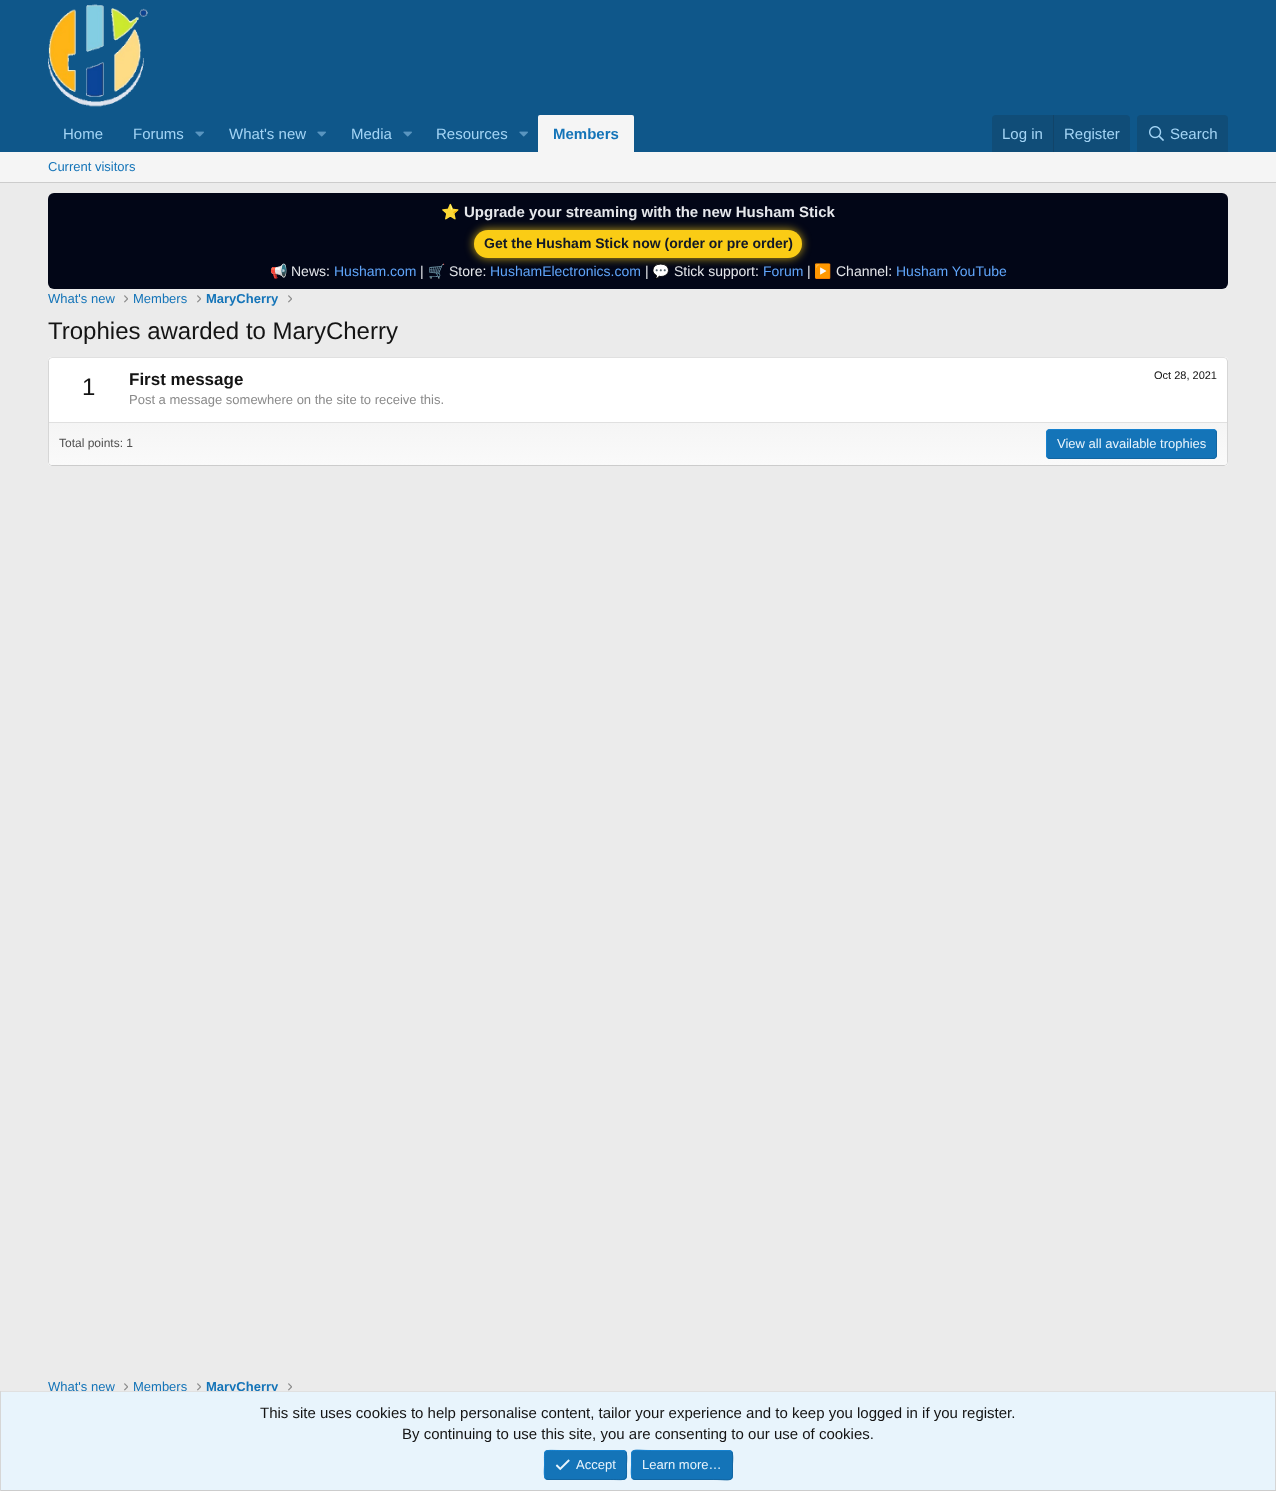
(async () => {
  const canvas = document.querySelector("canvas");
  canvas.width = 1276;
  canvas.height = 1491;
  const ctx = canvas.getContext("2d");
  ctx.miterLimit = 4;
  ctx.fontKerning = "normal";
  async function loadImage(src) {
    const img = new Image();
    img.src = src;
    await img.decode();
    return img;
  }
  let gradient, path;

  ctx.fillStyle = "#ebebeb";
  ctx.fillRect(0, 0, 1276, 1491);
  ctx.fillStyle = "#0f578a";
  ctx.fillRect(0, 0, 1276, 152);
  ctx.drawImage(await loadImage("img/1.png"), 48, 4, 100, 103);
  ctx.drawImage(await loadImage("img/2.png"), 195, 131, 9, 6);
  ctx.drawImage(await loadImage("img/2.png"), 317, 131, 9, 6);
  ctx.drawImage(await loadImage("img/2.png"), 403, 131, 9, 6);
  ctx.drawImage(await loadImage("img/2.png"), 519, 131, 9, 6);
  ctx.fillStyle = "#f5f5f5";
  ctx.beginPath();
  ctx.roundRect(538, 115, 96, 37, [2, 2, 0, 0]);
  ctx.fill();
  ctx.fillStyle = "#104d78";
  ctx.beginPath();
  ctx.roundRect(992, 115, 138, 37, [4, 4, 0, 0]);
  ctx.fill();
  ctx.fillStyle = "#114469";
  ctx.fillRect(1053, 115, 1, 37);
  ctx.fillStyle = "#104d78";
  ctx.beginPath();
  ctx.roundRect(1137, 115, 91, 37, [4, 4, 0, 0]);
  ctx.fill();
  ctx.drawImage(await loadImage("img/3.png"), 1149, 126, 15, 15);
  ctx.fillStyle = "#f5f5f5";
  ctx.fillRect(0, 152, 1276, 30);
  ctx.fillStyle = "#cccccc";
  ctx.fillRect(0, 182, 1276, 1);
  ctx.fillStyle = "#020617";
  ctx.beginPath();
  ctx.roundRect(48, 193, 1180, 96, 6);
  ctx.fill();
  ctx.fillStyle = "rgba(250, 204, 21, 0.8)";
  ctx.filter = "blur(5px)";
  ctx.beginPath();
  ctx.roundRect(474, 230, 328, 28, 14);
  ctx.fill();
  ctx.filter = "none";
  ctx.fillStyle = "#facc15";
  ctx.beginPath();
  ctx.roundRect(474, 230, 328, 28, 14);
  ctx.fill();
  ctx.drawImage(await loadImage("img/4.png"), 124, 295, 4, 8);
  ctx.drawImage(await loadImage("img/4.png"), 197, 295, 4, 8);
  ctx.drawImage(await loadImage("img/4.png"), 288, 295, 4, 8);
  ctx.fillStyle = "#ffffff";
  ctx.beginPath();
  ctx.roundRect(48, 357, 1180, 109, 4);
  ctx.fill();
  path = new Path2D("M49.5 358.5L52 357.5H1224L1226.5 358.5");
  ctx.strokeStyle = "#e0e0e0";
  ctx.stroke(path);
  path = new Path2D("M1226.5 358.5L1227.5 361V462.5L1226.5 464.5");
  ctx.strokeStyle = "#d6d6d6";
  ctx.stroke(path);
  path = new Path2D("M1226.5 464.5L1224 465.5H52L49.5 464.5");
  ctx.strokeStyle = "#cccccc";
  ctx.stroke(path);
  path = new Path2D("M49.5 464.5L48.5 462V360.5L49.5 358.5");
  ctx.strokeStyle = "#d6d6d6";
  ctx.stroke(path);
  gradient = ctx.createLinearGradient(638, 423, 638, 465);
  gradient.addColorStop(0, "#f5f5f5");
  gradient.addColorStop(1, "#fafafa");
  ctx.fillStyle = gradient;
  ctx.beginPath();
  ctx.roundRect(49, 423, 1178, 42, [0, 0, 3, 3]);
  ctx.fill();
  ctx.fillStyle = "#e0e0e0";
  ctx.fillRect(49, 422, 1178, 1);
  ctx.fillStyle = "#1474b8";
  ctx.beginPath();
  ctx.roundRect(1046, 429, 171, 30, 4);
  ctx.fill();
  path = new Path2D("M1215.5 430.5C1216 431 1216.5 432 1216.5 433V455C1216.5 456 1216 457 1215.5 457.5C1215 458 1214 458.5 1213 458.5H1050C1049 458.5 1048 458 1047.5 457.5");
  ctx.strokeStyle = "#1265a1";
  ctx.stroke(path);
  path = new Path2D("M1047.5 457.5C1047 457 1046.5 456 1046.5 455V433C1046.5 432 1047 431 1047.5 430.5C1048 430 1049 429.5 1050 429.5H1213C1214 429.5 1215 430 1215.5 430.5");
  ctx.strokeStyle = "#1782cf";
  ctx.stroke(path);
  ctx.drawImage(await loadImage("img/4.png"), 124, 1383, 4, 8);
  ctx.drawImage(await loadImage("img/4.png"), 197, 1383, 4, 8);
  ctx.drawImage(await loadImage("img/4.png"), 288, 1383, 4, 8);
  ctx.font = "15px Liberation Sans";
  ctx.fillStyle = "#a3d4f5";
  for (const [text, x, y] of [
    ["Home", 63, 139],
    ["Forums", 133, 139],
    ["What's new", 229, 139],
    ["Media", 351, 139],
    ["Resources", 436, 139],
  ]) {
    ctx.fillText(text, x, y);
  }
  ctx.font = "bold 15px Liberation Sans";
  ctx.fillStyle = "#1474b8";
  ctx.fillText("Members", 553, 139);
  ctx.font = "15px Liberation Sans";
  ctx.fillStyle = "#a3d4f5";
  for (const [text, x, y] of [
    ["Log in", 1002, 139],
    ["Register", 1064, 139],
    ["Search", 1170, 139],
  ]) {
    ctx.fillText(text, x, y);
  }
  ctx.font = "13px Liberation Sans";
  ctx.fillStyle = "#1474b8";
  ctx.fillText("Current visitors", 48, 171);
  ctx.font = "bold 15px Noto Color Emoji";
  ctx.fillStyle = "#e5e7eb";
  ctx.fillText("⭐", 441, 217);
  ctx.font = "bold 15px Liberation Sans";
  ctx.fillText("Upgrade your streaming with the new Husham Stick", 464, 217);
  ctx.font = "bold 14px Liberation Sans";
  ctx.fillStyle = "#111827";
  ctx.fillText("Get the Husham Stick now (order or pre order)", 484, 248);
  ctx.font = "14px Noto Color Emoji";
  ctx.fillStyle = "#e5e7eb";
  ctx.fillText("📢", 270, 276);
  ctx.font = "14px Liberation Sans";
  ctx.fillText("News:", 291, 276);
  ctx.fillStyle = "#60a5fa";
  ctx.fillText("Husham.com", 334, 276);
  ctx.fillStyle = "#e5e7eb";
  ctx.fillText("|", 420, 276);
  ctx.font = "14px Noto Color Emoji";
  ctx.fillText("🛒", 428, 276);
  ctx.font = "14px Liberation Sans";
  ctx.fillText("Store:", 449, 276);
  ctx.fillStyle = "#60a5fa";
  ctx.fillText("HushamElectronics.com", 490, 276);
  ctx.fillStyle = "#e5e7eb";
  ctx.fillText("|", 645, 276);
  ctx.font = "14px Noto Color Emoji";
  ctx.fillText("💬", 652, 276);
  ctx.font = "14px Liberation Sans";
  ctx.fillText("Stick support:", 674, 276);
  ctx.fillStyle = "#60a5fa";
  ctx.fillText("Forum", 763, 276);
  ctx.fillStyle = "#e5e7eb";
  ctx.fillText("|", 807, 276);
  ctx.font = "14px Noto Color Emoji";
  ctx.fillText("▶️", 814, 276);
  ctx.font = "14px Liberation Sans";
  ctx.fillText("Channel:", 836, 276);
  ctx.fillStyle = "#60a5fa";
  ctx.fillText("Husham YouTube", 896, 276);
  ctx.font = "13px Liberation Sans";
  ctx.fillStyle = "#1474b8";
  ctx.fillText("What's new", 48, 303);
  ctx.fillText("Members", 133, 303);
  ctx.font = "bold 13px Liberation Sans";
  ctx.fillText("MaryCherry", 206, 303);
  ctx.font = "24px Liberation Sans";
  ctx.fillStyle = "#141414";
  ctx.fillText("Trophies awarded to MaryCherry", 48, 339);
  ctx.fillText("1", 82, 395);
  ctx.font = "bold 17px Liberation Sans";
  ctx.fillText("First message", 129, 385);
  ctx.font = "11px Liberation Sans";
  ctx.fillText("Oct 28, 2021", 1154, 379);
  ctx.font = "13px Liberation Sans";
  ctx.fillStyle = "#8a8a8a";
  ctx.fillText("Post a message somewhere on the site to receive this.", 129, 404);
  ctx.font = "12px Liberation Sans";
  ctx.fillStyle = "#4f4f4f";
  ctx.fillText("Total points: 1", 59, 447);
  ctx.font = "13px Liberation Sans";
  ctx.fillStyle = "#e8f4fc";
  ctx.fillText("View all available trophies", 1057, 448);
  ctx.fillStyle = "#1474b8";
  ctx.fillText("What's new", 48, 1391);
  ctx.fillText("Members", 133, 1391);
  ctx.font = "bold 13px Liberation Sans";
  ctx.fillText("MaryCherry", 206, 1391);
  for (const [x, y, w, h, color] of [
    [1, 1392, 1274, 98, "#e8f4fc"],
    [0, 1391, 1276, 1, "#e0e0e0"],
    [1275, 1391, 1, 100, "#d6d6d6"],
    [0, 1490, 1276, 1, "#cccccc"],
    [0, 1391, 1, 100, "#d6d6d6"],
  ]) {
    ctx.fillStyle = color;
    ctx.fillRect(x, y, w, h);
  }
  ctx.font = "15px Liberation Sans";
  ctx.fillStyle = "#141414";
  ctx.fillText("This site uses cookies to help personalise content, tailor your experience and to keep you logged in if you register.", 260, 1418);
  ctx.fillText("By continuing to use this site, you are consenting to our use of cookies.", 402, 1439);
  ctx.fillStyle = "#1474b8";
  ctx.beginPath();
  ctx.roundRect(544, 1450, 83, 30, 4);
  ctx.fill();
  path = new Path2D("M625.5 1451.5C627.5 1453.5 626.5 1462 626.5 1465C626.5 1482 628.5 1479.5 610.5 1479.5H548L545.5 1478.5");
  ctx.strokeStyle = "#1265a1";
  ctx.stroke(path);
  path = new Path2D("M545.5 1478.5C543.5 1476.5 544.5 1468 544.5 1465C544.5 1448 542.5 1450.5 560.5 1450.5H623L625.5 1451.5");
  ctx.strokeStyle = "#1782cf";
  ctx.stroke(path);
  ctx.drawImage(await loadImage("img/5.png"), 555, 1459, 15, 12);
  ctx.font = "13px Liberation Sans";
  ctx.fillStyle = "#e8f4fc";
  ctx.fillText("Accept", 576, 1469);
  ctx.fillStyle = "#1474b8";
  ctx.beginPath();
  ctx.roundRect(631, 1450, 102, 30, 4);
  ctx.fill();
  path = new Path2D("M731.5 1451.5C733.5 1453.5 732.5 1462 732.5 1465C732.5 1483.5 734 1479.5 713.5 1479.5H635L632.5 1478.5");
  ctx.strokeStyle = "#1265a1";
  ctx.stroke(path);
  path = new Path2D("M632.5 1478.5C630.5 1476.5 631.5 1468 631.5 1465C631.5 1446.5 630 1450.5 650.5 1450.5H729L731.5 1451.5");
  ctx.strokeStyle = "#1782cf";
  ctx.stroke(path);
  ctx.fillStyle = "#e8f4fc";
  ctx.fillText("Learn more…", 642, 1469);
})();
